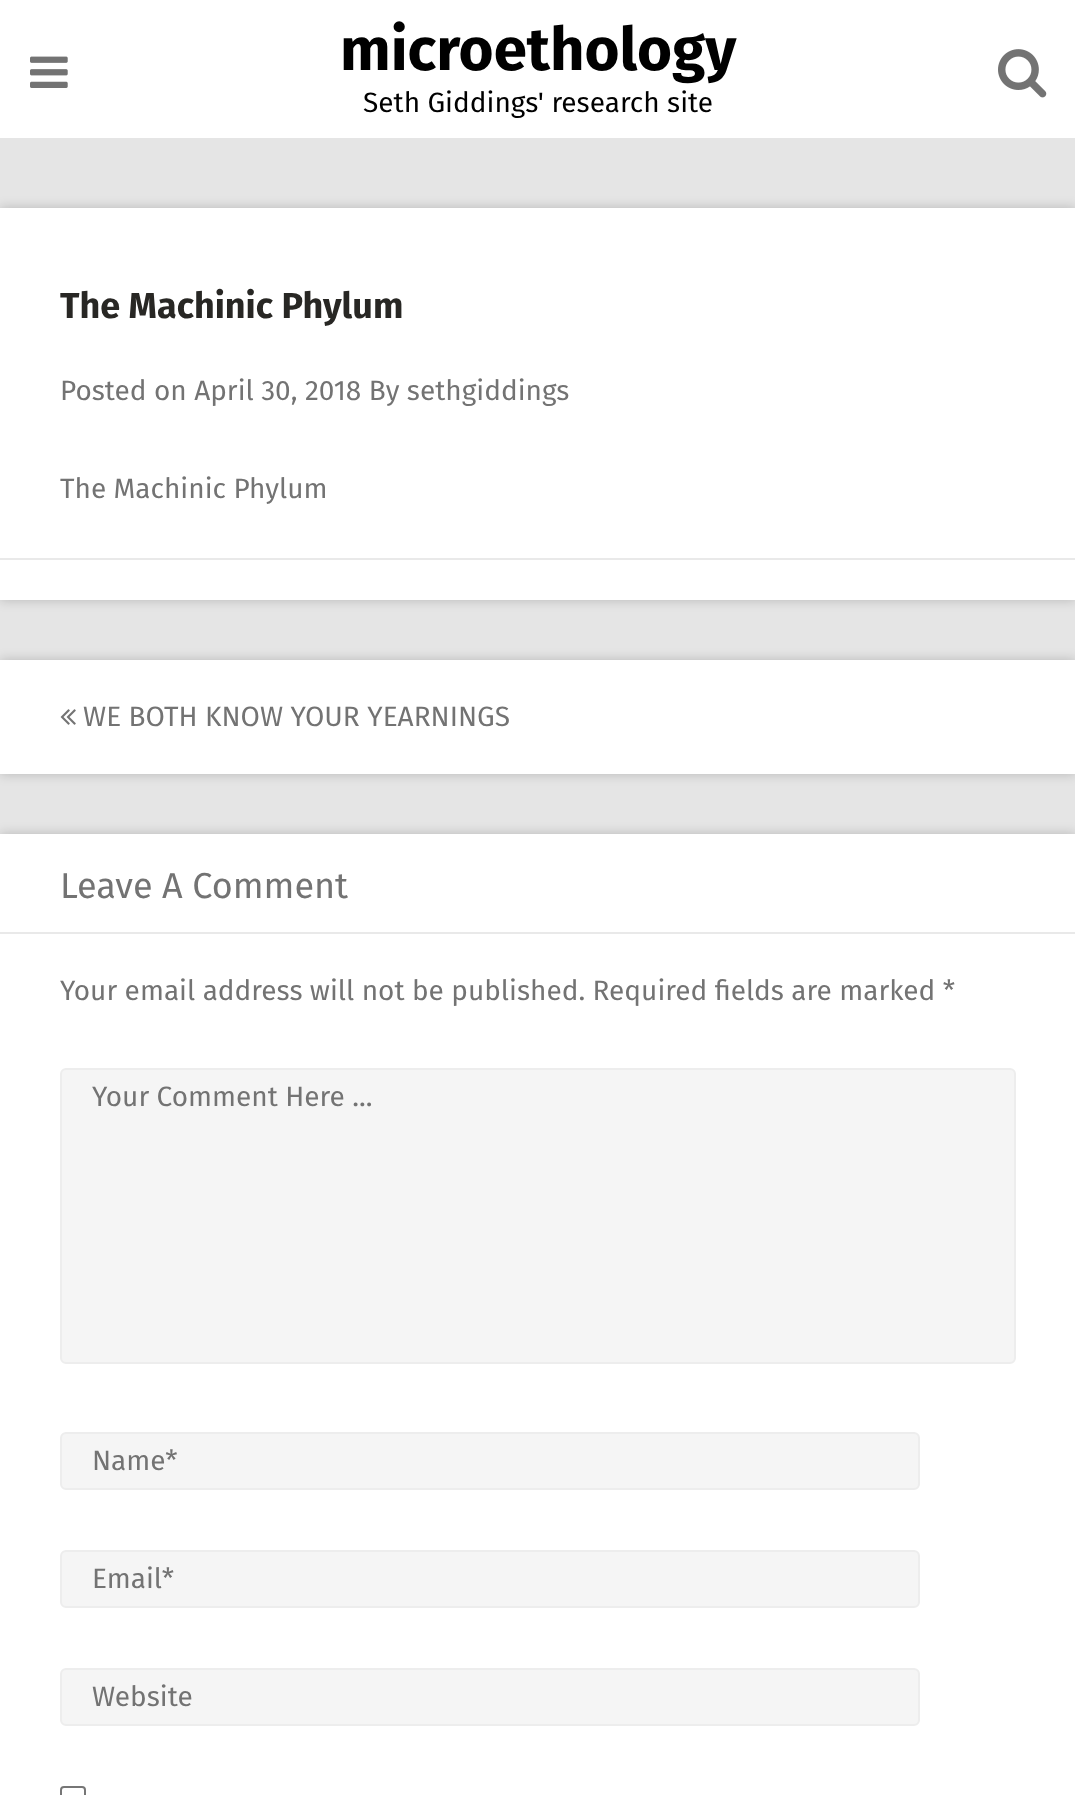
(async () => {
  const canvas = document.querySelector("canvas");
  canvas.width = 1075;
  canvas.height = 1795;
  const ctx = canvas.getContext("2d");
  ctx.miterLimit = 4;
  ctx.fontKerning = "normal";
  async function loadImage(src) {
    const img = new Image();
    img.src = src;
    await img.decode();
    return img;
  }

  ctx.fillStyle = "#e5e5e5";
  ctx.fillRect(0, 0, 1075, 1795);
  ctx.fillStyle = "#ffffff";
  ctx.fillRect(0, 0, 1075, 138);
  ctx.drawImage(await loadImage("img/1.png"), 30, 56, 38, 32);
  ctx.drawImage(await loadImage("img/2.png"), 998, 49, 49, 49);
  ctx.fillStyle = "rgba(0, 0, 0, 0.2)";
  ctx.filter = "blur(6px)";
  ctx.beginPath();
  ctx.rect(0, 208, 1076, 392);
  ctx.fill();
  ctx.filter = "none";
  ctx.fillStyle = "#ffffff";
  ctx.fillRect(0, 208, 1075, 392);
  ctx.fillStyle = "#e9e9e9";
  ctx.fillRect(0, 558, 1075, 2);
  ctx.fillStyle = "rgba(0, 0, 0, 0.2)";
  ctx.filter = "blur(6px)";
  ctx.beginPath();
  ctx.rect(0, 660, 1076, 114);
  ctx.fill();
  ctx.filter = "none";
  ctx.fillStyle = "#ffffff";
  ctx.fillRect(0, 660, 1075, 114);
  ctx.drawImage(await loadImage("img/3.png"), 60, 709, 16, 16);
  ctx.fillStyle = "rgba(0, 0, 0, 0.2)";
  ctx.filter = "blur(6px)";
  ctx.beginPath();
  ctx.rect(0, 834, 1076, 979);
  ctx.fill();
  ctx.filter = "none";
  ctx.fillStyle = "#ffffff";
  ctx.fillRect(0, 834, 1075, 961);
  ctx.fillStyle = "#e9e9e9";
  ctx.fillRect(0, 932, 1075, 2);
  ctx.fillStyle = "#f5f5f5";
  ctx.beginPath();
  ctx.roundRect(61, 1069, 954, 294, 5);
  ctx.fill();
  ctx.strokeStyle = "#ededed";
  ctx.lineWidth = 2;
  ctx.stroke();
  ctx.beginPath();
  ctx.roundRect(61, 1433, 858, 56, 5);
  ctx.fill();
  ctx.stroke();
  ctx.beginPath();
  ctx.roundRect(61, 1551, 858, 56, 5);
  ctx.fill();
  ctx.stroke();
  ctx.beginPath();
  ctx.roundRect(61, 1669, 858, 56, 5);
  ctx.fill();
  ctx.stroke();
  ctx.beginPath();
  ctx.roundRect(61, 1787, 24, 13, 3);
  ctx.strokeStyle = "#767676";
  ctx.stroke();
  ctx.font = "bold 60px Fira Sans";
  ctx.fillStyle = "#000000";
  ctx.fillText("microethology", 340, 70);
  ctx.font = "28px Fira Sans";
  ctx.fillText("Seth Giddings' research site", 363, 112);
  ctx.font = "bold 36px Fira Sans";
  ctx.fillStyle = "#282724";
  ctx.fillText("The Machinic Phylum", 60, 318);
  ctx.font = "28px Fira Sans";
  ctx.fillStyle = "#737373";
  for (const [text, x, y] of [
    ["Posted on April 30, 2018 By sethgiddings", 60, 400],
    ["The Machinic Phylum", 60, 498],
    ["WE BOTH KNOW YOUR YEARNINGS", 83, 726],
  ]) {
    ctx.fillText(text, x, y);
  }
  ctx.font = "36px Fira Sans";
  ctx.fillText("Leave A Comment", 60, 898);
  ctx.font = "28px Fira Sans";
  for (const [text, x, y] of [
    ["Your email address will not be published. Required fields are marked *", 60, 1000],
    ["Your Comment Here ...", 92, 1106],
    ["Name*", 92, 1470],
    ["Email*", 92, 1588],
    ["Website", 92, 1706],
  ]) {
    ctx.fillText(text, x, y);
  }
})();
